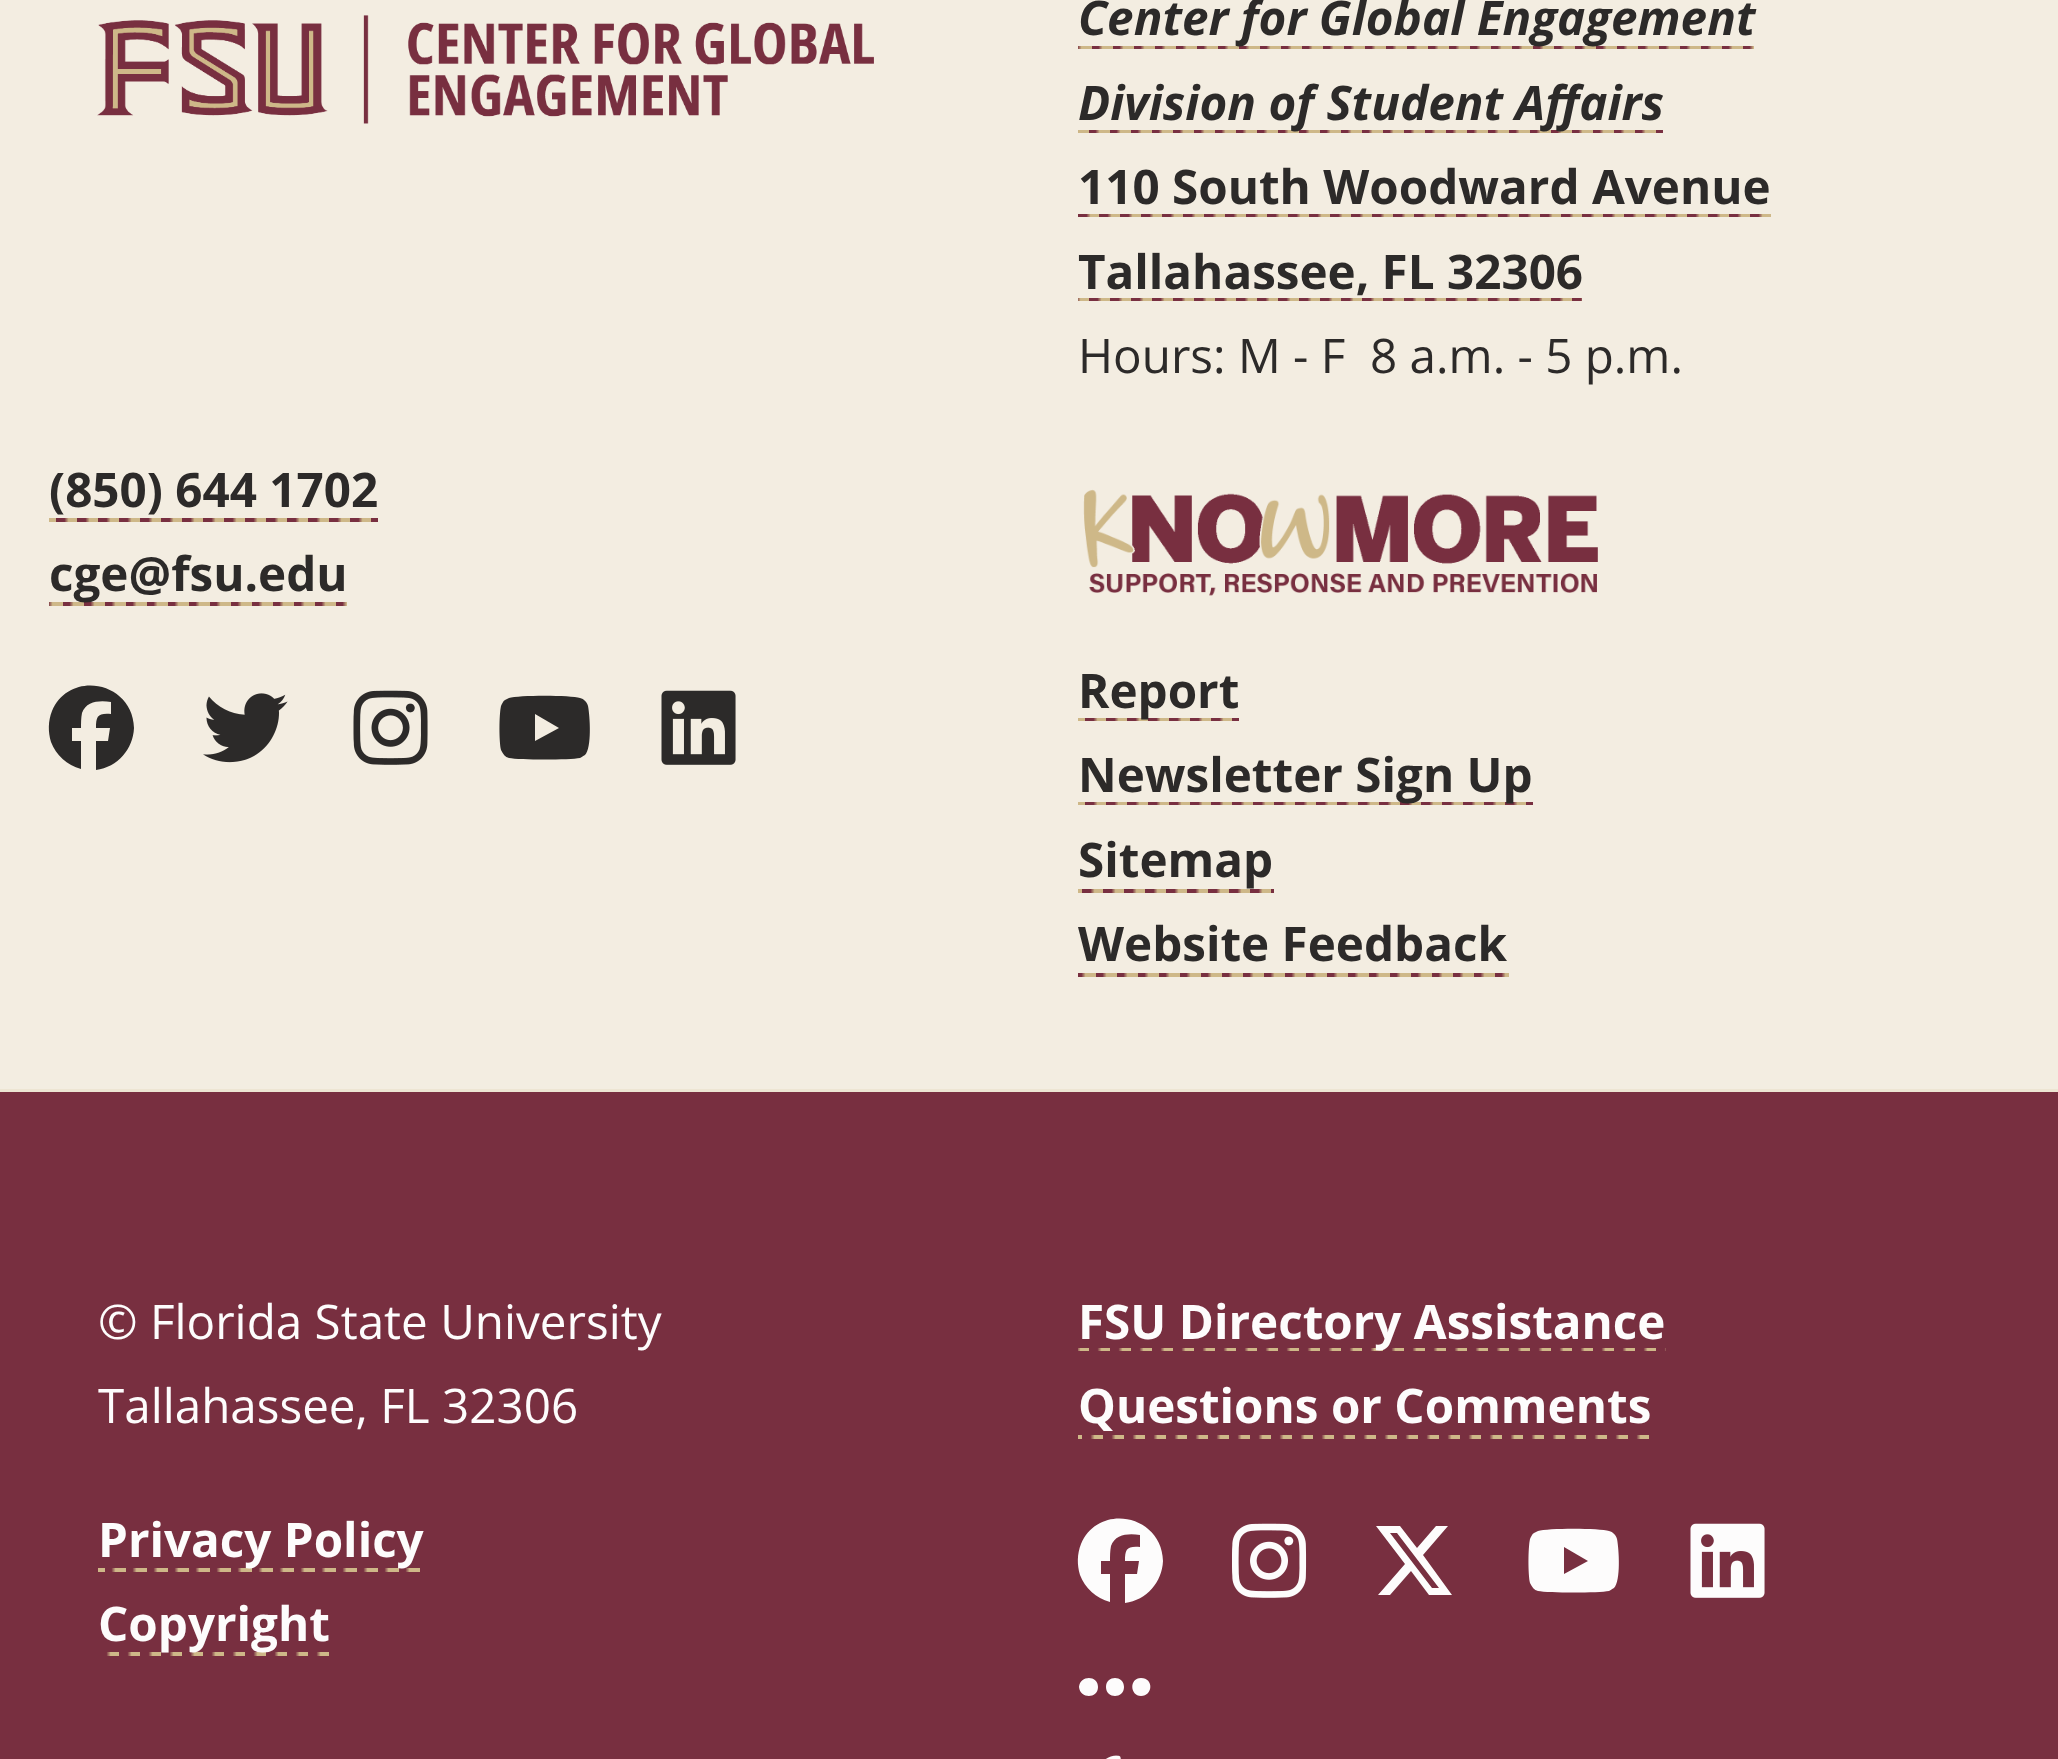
(async () => {
  const canvas = document.querySelector("canvas");
  canvas.width = 2058;
  canvas.height = 1759;
  const ctx = canvas.getContext("2d");
  ctx.miterLimit = 4;
  ctx.fontKerning = "normal";
  async function loadImage(src) {
    const img = new Image();
    img.src = src;
    await img.decode();
    return img;
  }
  let gradient, path;

  ctx.fillStyle = "#f3ede1";
  ctx.fillRect(0, 0, 2058, 1759);
  ctx.fillStyle = "#ede5d3";
  ctx.fillRect(0, 1089, 2058, 3);
  ctx.drawImage(await loadImage("img/1.png"), 97, 15, 777, 109);
  ctx.drawImage(await loadImage("img/2.png"), 1078, 46, 676, 3);
  ctx.drawImage(await loadImage("img/3.png"), 1078, 130, 585, 3);
  ctx.drawImage(await loadImage("img/4.png"), 1078, 214, 693, 3);
  ctx.drawImage(await loadImage("img/5.png"), 1078, 298, 504, 3);
  gradient = ctx.createLinearGradient(35, 520, 56, 520);
  gradient.addColorStop(0.4, "#782f40");
  gradient.addColorStop(0.6, "#ceb888");
  ctx.fillStyle = gradient;
  ctx.fillRect(49, 518, 7, 4);
  gradient = ctx.createLinearGradient(56, 520, 77, 520);
  gradient.addColorStop(0.4, "#782f40");
  gradient.addColorStop(0.6, "#ceb888");
  ctx.fillStyle = gradient;
  ctx.fillRect(56, 518, 21, 4);
  gradient = ctx.createLinearGradient(77, 520, 98, 520);
  gradient.addColorStop(0.4, "#782f40");
  gradient.addColorStop(0.6, "#ceb888");
  ctx.fillStyle = gradient;
  ctx.fillRect(77, 518, 21, 4);
  gradient = ctx.createLinearGradient(98, 520, 119, 520);
  gradient.addColorStop(0.4, "#782f40");
  gradient.addColorStop(0.6, "#ceb888");
  ctx.fillStyle = gradient;
  ctx.fillRect(98, 518, 21, 4);
  gradient = ctx.createLinearGradient(119, 520, 140, 520);
  gradient.addColorStop(0.4, "#782f40");
  gradient.addColorStop(0.6, "#ceb888");
  ctx.fillStyle = gradient;
  ctx.fillRect(119, 518, 21, 4);
  gradient = ctx.createLinearGradient(140, 520, 161, 520);
  gradient.addColorStop(0.4, "#782f40");
  gradient.addColorStop(0.6, "#ceb888");
  ctx.fillStyle = gradient;
  ctx.fillRect(140, 518, 21, 4);
  gradient = ctx.createLinearGradient(161, 520, 182, 520);
  gradient.addColorStop(0.4, "#782f40");
  gradient.addColorStop(0.6, "#ceb888");
  ctx.fillStyle = gradient;
  ctx.fillRect(161, 518, 21, 4);
  gradient = ctx.createLinearGradient(182, 520, 203, 520);
  gradient.addColorStop(0.4, "#782f40");
  gradient.addColorStop(0.6, "#ceb888");
  ctx.fillStyle = gradient;
  ctx.fillRect(182, 518, 21, 4);
  gradient = ctx.createLinearGradient(203, 520, 224, 520);
  gradient.addColorStop(0.4, "#782f40");
  gradient.addColorStop(0.6, "#ceb888");
  ctx.fillStyle = gradient;
  ctx.fillRect(203, 518, 21, 4);
  gradient = ctx.createLinearGradient(224, 520, 245, 520);
  gradient.addColorStop(0.4, "#782f40");
  gradient.addColorStop(0.6, "#ceb888");
  ctx.fillStyle = gradient;
  ctx.fillRect(224, 518, 21, 4);
  gradient = ctx.createLinearGradient(245, 520, 266, 520);
  gradient.addColorStop(0.4, "#782f40");
  gradient.addColorStop(0.6, "#ceb888");
  ctx.fillStyle = gradient;
  ctx.fillRect(245, 518, 21, 4);
  gradient = ctx.createLinearGradient(266, 520, 287, 520);
  gradient.addColorStop(0.4, "#782f40");
  gradient.addColorStop(0.6, "#ceb888");
  ctx.fillStyle = gradient;
  ctx.fillRect(266, 518, 21, 4);
  gradient = ctx.createLinearGradient(287, 520, 308, 520);
  gradient.addColorStop(0.4, "#782f40");
  gradient.addColorStop(0.6, "#ceb888");
  ctx.fillStyle = gradient;
  ctx.fillRect(287, 518, 21, 4);
  gradient = ctx.createLinearGradient(308, 520, 329, 520);
  gradient.addColorStop(0.4, "#782f40");
  gradient.addColorStop(0.6, "#ceb888");
  ctx.fillStyle = gradient;
  ctx.fillRect(308, 518, 21, 4);
  gradient = ctx.createLinearGradient(329, 520, 350, 520);
  gradient.addColorStop(0.4, "#782f40");
  gradient.addColorStop(0.6, "#ceb888");
  ctx.fillStyle = gradient;
  ctx.fillRect(329, 518, 21, 4);
  gradient = ctx.createLinearGradient(350, 520, 371, 520);
  gradient.addColorStop(0.4, "#782f40");
  gradient.addColorStop(0.6, "#ceb888");
  ctx.fillStyle = gradient;
  ctx.fillRect(350, 518, 21, 4);
  gradient = ctx.createLinearGradient(371, 520, 392, 520);
  gradient.addColorStop(0.4, "#782f40");
  gradient.addColorStop(0.6, "#ceb888");
  ctx.fillStyle = gradient;
  ctx.fillRect(371, 518, 7, 4);
  gradient = ctx.createLinearGradient(40, 604, 61, 604);
  gradient.addColorStop(0.4, "#782f40");
  gradient.addColorStop(0.6, "#ceb888");
  ctx.fillStyle = gradient;
  ctx.fillRect(49, 602, 14, 4);
  gradient = ctx.createLinearGradient(61, 604, 82, 604);
  gradient.addColorStop(0.4, "#782f40");
  gradient.addColorStop(0.6, "#ceb888");
  ctx.fillStyle = gradient;
  ctx.fillRect(63, 602, 21, 4);
  gradient = ctx.createLinearGradient(82, 604, 103, 604);
  gradient.addColorStop(0.4, "#782f40");
  gradient.addColorStop(0.6, "#ceb888");
  ctx.fillStyle = gradient;
  ctx.fillRect(84, 602, 21, 4);
  gradient = ctx.createLinearGradient(103, 604, 124, 604);
  gradient.addColorStop(0.4, "#782f40");
  gradient.addColorStop(0.6, "#ceb888");
  ctx.fillStyle = gradient;
  ctx.fillRect(105, 602, 21, 4);
  gradient = ctx.createLinearGradient(124, 604, 145, 604);
  gradient.addColorStop(0.4, "#782f40");
  gradient.addColorStop(0.6, "#ceb888");
  ctx.fillStyle = gradient;
  ctx.fillRect(126, 602, 21, 4);
  gradient = ctx.createLinearGradient(145, 604, 166, 604);
  gradient.addColorStop(0.4, "#782f40");
  gradient.addColorStop(0.6, "#ceb888");
  ctx.fillStyle = gradient;
  ctx.fillRect(147, 602, 21, 4);
  gradient = ctx.createLinearGradient(166, 604, 187, 604);
  gradient.addColorStop(0.4, "#782f40");
  gradient.addColorStop(0.6, "#ceb888");
  ctx.fillStyle = gradient;
  ctx.fillRect(168, 602, 21, 4);
  gradient = ctx.createLinearGradient(187, 604, 208, 604);
  gradient.addColorStop(0.4, "#782f40");
  gradient.addColorStop(0.6, "#ceb888");
  ctx.fillStyle = gradient;
  ctx.fillRect(189, 602, 21, 4);
  gradient = ctx.createLinearGradient(208, 604, 229, 604);
  gradient.addColorStop(0.4, "#782f40");
  gradient.addColorStop(0.6, "#ceb888");
  ctx.fillStyle = gradient;
  ctx.fillRect(210, 602, 21, 4);
  gradient = ctx.createLinearGradient(229, 604, 250, 604);
  gradient.addColorStop(0.4, "#782f40");
  gradient.addColorStop(0.6, "#ceb888");
  ctx.fillStyle = gradient;
  ctx.fillRect(231, 602, 21, 4);
  gradient = ctx.createLinearGradient(250, 604, 271, 604);
  gradient.addColorStop(0.4, "#782f40");
  gradient.addColorStop(0.6, "#ceb888");
  ctx.fillStyle = gradient;
  ctx.fillRect(252, 602, 21, 4);
  gradient = ctx.createLinearGradient(271, 604, 292, 604);
  gradient.addColorStop(0.4, "#782f40");
  gradient.addColorStop(0.6, "#ceb888");
  ctx.fillStyle = gradient;
  ctx.fillRect(273, 602, 21, 4);
  gradient = ctx.createLinearGradient(292, 604, 313, 604);
  gradient.addColorStop(0.4, "#782f40");
  gradient.addColorStop(0.6, "#ceb888");
  ctx.fillStyle = gradient;
  ctx.fillRect(294, 602, 21, 4);
  gradient = ctx.createLinearGradient(313, 604, 334, 604);
  gradient.addColorStop(0.4, "#782f40");
  gradient.addColorStop(0.6, "#ceb888");
  ctx.fillStyle = gradient;
  ctx.fillRect(315, 602, 21, 4);
  gradient = ctx.createLinearGradient(334, 604, 355, 604);
  gradient.addColorStop(0.4, "#782f40");
  gradient.addColorStop(0.6, "#ceb888");
  ctx.fillStyle = gradient;
  ctx.fillRect(336, 602, 11, 4);
  ctx.fillStyle = "#2c2a29";
  path = new Path2D("M134 728C133 682 70 669 52 711C48 721 48 732 51 742C56 755 67 765 81 769V741H72V728H81C81 723 81 718 82 713C86 701 100 700 111 702V714C98 713 96 716 96 728H110L108 741H96V770C118 767 133 749 134 728Z");
  ctx.fill(path);
  ctx.drawImage(await loadImage("img/6.png"), 203, 693, 85, 70);
  ctx.drawImage(await loadImage("img/7.png"), 353, 690, 75, 75);
  path = new Path2D("M588 706C587 702 584 699 580 698C571 695 518 695 509 698L505 700C503 701 502 704 501 706C499 715 499 741 501 750C503 754 505 757 509 758C519 760 570 760 580 758C582 757 583 756 585 755C592 748 590 716 588 706ZM535 741V714V741V714L559 728Z");
  ctx.fill(path);
  ctx.drawImage(await loadImage("img/8.png"), 661, 690, 75, 75);
  ctx.drawImage(await loadImage("img/9.png"), 1083, 489, 515, 107);
  gradient = ctx.createLinearGradient(1064, 719, 1085, 719);
  gradient.addColorStop(0.4, "#782f40");
  gradient.addColorStop(0.6, "#ceb888");
  ctx.fillStyle = gradient;
  ctx.fillRect(1078, 718, 7, 3);
  gradient = ctx.createLinearGradient(1085, 719, 1106, 719);
  gradient.addColorStop(0.4, "#782f40");
  gradient.addColorStop(0.6, "#ceb888");
  ctx.fillStyle = gradient;
  ctx.fillRect(1085, 718, 21, 3);
  gradient = ctx.createLinearGradient(1106, 719, 1127, 719);
  gradient.addColorStop(0.4, "#782f40");
  gradient.addColorStop(0.6, "#ceb888");
  ctx.fillStyle = gradient;
  ctx.fillRect(1106, 718, 21, 3);
  gradient = ctx.createLinearGradient(1127, 719, 1148, 719);
  gradient.addColorStop(0.4, "#782f40");
  gradient.addColorStop(0.6, "#ceb888");
  ctx.fillStyle = gradient;
  ctx.fillRect(1127, 718, 21, 3);
  gradient = ctx.createLinearGradient(1148, 719, 1169, 719);
  gradient.addColorStop(0.4, "#782f40");
  gradient.addColorStop(0.6, "#ceb888");
  ctx.fillStyle = gradient;
  ctx.fillRect(1148, 718, 21, 3);
  gradient = ctx.createLinearGradient(1169, 719, 1190, 719);
  gradient.addColorStop(0.4, "#782f40");
  gradient.addColorStop(0.6, "#ceb888");
  ctx.fillStyle = gradient;
  ctx.fillRect(1169, 718, 21, 3);
  gradient = ctx.createLinearGradient(1190, 719, 1211, 719);
  gradient.addColorStop(0.4, "#782f40");
  gradient.addColorStop(0.6, "#ceb888");
  ctx.fillStyle = gradient;
  ctx.fillRect(1190, 718, 21, 3);
  gradient = ctx.createLinearGradient(1211, 719, 1232, 719);
  gradient.addColorStop(0.4, "#782f40");
  gradient.addColorStop(0.6, "#ceb888");
  ctx.fillStyle = gradient;
  ctx.fillRect(1211, 718, 21, 3);
  gradient = ctx.createLinearGradient(1232, 719, 1253, 719);
  gradient.addColorStop(0.4, "#782f40");
  gradient.addColorStop(0.6, "#ceb888");
  ctx.fillStyle = gradient;
  ctx.fillRect(1232, 718, 7, 3);
  ctx.drawImage(await loadImage("img/10.png"), 1078, 802, 455, 3);
  gradient = ctx.createLinearGradient(1061, 891, 1082, 891);
  gradient.addColorStop(0.4, "#782f40");
  gradient.addColorStop(0.6, "#ceb888");
  ctx.fillStyle = gradient;
  ctx.fillRect(1078, 889, 4, 4);
  gradient = ctx.createLinearGradient(1082, 891, 1103, 891);
  gradient.addColorStop(0.4, "#782f40");
  gradient.addColorStop(0.6, "#ceb888");
  ctx.fillStyle = gradient;
  ctx.fillRect(1082, 889, 21, 4);
  gradient = ctx.createLinearGradient(1103, 891, 1124, 891);
  gradient.addColorStop(0.4, "#782f40");
  gradient.addColorStop(0.6, "#ceb888");
  ctx.fillStyle = gradient;
  ctx.fillRect(1103, 889, 21, 4);
  gradient = ctx.createLinearGradient(1124, 891, 1145, 891);
  gradient.addColorStop(0.4, "#782f40");
  gradient.addColorStop(0.6, "#ceb888");
  ctx.fillStyle = gradient;
  ctx.fillRect(1124, 889, 21, 4);
  gradient = ctx.createLinearGradient(1145, 891, 1166, 891);
  gradient.addColorStop(0.4, "#782f40");
  gradient.addColorStop(0.6, "#ceb888");
  ctx.fillStyle = gradient;
  ctx.fillRect(1145, 889, 21, 4);
  gradient = ctx.createLinearGradient(1166, 891, 1187, 891);
  gradient.addColorStop(0.4, "#782f40");
  gradient.addColorStop(0.6, "#ceb888");
  ctx.fillStyle = gradient;
  ctx.fillRect(1166, 889, 21, 4);
  gradient = ctx.createLinearGradient(1187, 891, 1208, 891);
  gradient.addColorStop(0.4, "#782f40");
  gradient.addColorStop(0.6, "#ceb888");
  ctx.fillStyle = gradient;
  ctx.fillRect(1187, 889, 21, 4);
  gradient = ctx.createLinearGradient(1208, 891, 1229, 891);
  gradient.addColorStop(0.4, "#782f40");
  gradient.addColorStop(0.6, "#ceb888");
  ctx.fillStyle = gradient;
  ctx.fillRect(1208, 889, 21, 4);
  gradient = ctx.createLinearGradient(1229, 891, 1250, 891);
  gradient.addColorStop(0.4, "#782f40");
  gradient.addColorStop(0.6, "#ceb888");
  ctx.fillStyle = gradient;
  ctx.fillRect(1229, 889, 21, 4);
  gradient = ctx.createLinearGradient(1250, 891, 1271, 891);
  gradient.addColorStop(0.4, "#782f40");
  gradient.addColorStop(0.6, "#ceb888");
  ctx.fillStyle = gradient;
  ctx.fillRect(1250, 889, 21, 4);
  gradient = ctx.createLinearGradient(1271, 891, 1292, 891);
  gradient.addColorStop(0.4, "#782f40");
  gradient.addColorStop(0.6, "#ceb888");
  ctx.fillStyle = gradient;
  ctx.fillRect(1271, 889, 3, 4);
  ctx.drawImage(await loadImage("img/11.png"), 1078, 973, 431, 4);
  ctx.fillStyle = "#782f40";
  ctx.fillRect(0, 1092, 2058, 667);
  ctx.drawImage(await loadImage("img/12.png"), 1078, 1348, 588, 3);
  ctx.drawImage(await loadImage("img/13.png"), 1078, 1435, 571, 4);
  gradient = ctx.createLinearGradient(82, 1570, 103, 1570);
  gradient.addColorStop(0.4, "#782f40");
  gradient.addColorStop(0.6, "#ceb888");
  ctx.fillStyle = gradient;
  ctx.fillRect(98, 1568, 7, 4);
  gradient = ctx.createLinearGradient(103, 1570, 124, 1570);
  gradient.addColorStop(0.4, "#782f40");
  gradient.addColorStop(0.6, "#ceb888");
  ctx.fillStyle = gradient;
  ctx.fillRect(105, 1568, 21, 4);
  gradient = ctx.createLinearGradient(124, 1570, 145, 1570);
  gradient.addColorStop(0.4, "#782f40");
  gradient.addColorStop(0.6, "#ceb888");
  ctx.fillStyle = gradient;
  ctx.fillRect(126, 1568, 21, 4);
  gradient = ctx.createLinearGradient(145, 1570, 166, 1570);
  gradient.addColorStop(0.4, "#782f40");
  gradient.addColorStop(0.6, "#ceb888");
  ctx.fillStyle = gradient;
  ctx.fillRect(147, 1568, 21, 4);
  gradient = ctx.createLinearGradient(166, 1570, 187, 1570);
  gradient.addColorStop(0.4, "#782f40");
  gradient.addColorStop(0.6, "#ceb888");
  ctx.fillStyle = gradient;
  ctx.fillRect(168, 1568, 21, 4);
  gradient = ctx.createLinearGradient(187, 1570, 208, 1570);
  gradient.addColorStop(0.4, "#782f40");
  gradient.addColorStop(0.6, "#ceb888");
  ctx.fillStyle = gradient;
  ctx.fillRect(189, 1568, 21, 4);
  gradient = ctx.createLinearGradient(208, 1570, 229, 1570);
  gradient.addColorStop(0.4, "#782f40");
  gradient.addColorStop(0.6, "#ceb888");
  ctx.fillStyle = gradient;
  ctx.fillRect(210, 1568, 21, 4);
  gradient = ctx.createLinearGradient(229, 1570, 250, 1570);
  gradient.addColorStop(0.4, "#782f40");
  gradient.addColorStop(0.6, "#ceb888");
  ctx.fillStyle = gradient;
  ctx.fillRect(231, 1568, 21, 4);
  gradient = ctx.createLinearGradient(250, 1570, 271, 1570);
  gradient.addColorStop(0.4, "#782f40");
  gradient.addColorStop(0.6, "#ceb888");
  ctx.fillStyle = gradient;
  ctx.fillRect(252, 1568, 21, 4);
  gradient = ctx.createLinearGradient(271, 1570, 292, 1570);
  gradient.addColorStop(0.4, "#782f40");
  gradient.addColorStop(0.6, "#ceb888");
  ctx.fillStyle = gradient;
  ctx.fillRect(273, 1568, 21, 4);
  gradient = ctx.createLinearGradient(292, 1570, 313, 1570);
  gradient.addColorStop(0.4, "#782f40");
  gradient.addColorStop(0.6, "#ceb888");
  ctx.fillStyle = gradient;
  ctx.fillRect(294, 1568, 21, 4);
  gradient = ctx.createLinearGradient(313, 1570, 334, 1570);
  gradient.addColorStop(0.4, "#782f40");
  gradient.addColorStop(0.6, "#ceb888");
  ctx.fillStyle = gradient;
  ctx.fillRect(315, 1568, 21, 4);
  gradient = ctx.createLinearGradient(334, 1570, 355, 1570);
  gradient.addColorStop(0.4, "#782f40");
  gradient.addColorStop(0.6, "#ceb888");
  ctx.fillStyle = gradient;
  ctx.fillRect(336, 1568, 21, 4);
  gradient = ctx.createLinearGradient(355, 1570, 376, 1570);
  gradient.addColorStop(0.4, "#782f40");
  gradient.addColorStop(0.6, "#ceb888");
  ctx.fillStyle = gradient;
  ctx.fillRect(357, 1568, 21, 4);
  gradient = ctx.createLinearGradient(376, 1570, 397, 1570);
  gradient.addColorStop(0.4, "#782f40");
  gradient.addColorStop(0.6, "#ceb888");
  ctx.fillStyle = gradient;
  ctx.fillRect(378, 1568, 21, 4);
  gradient = ctx.createLinearGradient(397, 1570, 418, 1570);
  gradient.addColorStop(0.4, "#782f40");
  gradient.addColorStop(0.6, "#ceb888");
  ctx.fillStyle = gradient;
  ctx.fillRect(399, 1568, 21, 4);
  gradient = ctx.createLinearGradient(98, 1654, 119, 1654);
  gradient.addColorStop(0.4, "#782f40");
  gradient.addColorStop(0.6, "#ceb888");
  ctx.fillStyle = gradient;
  ctx.fillRect(98, 1652, 21, 4);
  gradient = ctx.createLinearGradient(119, 1654, 140, 1654);
  gradient.addColorStop(0.4, "#782f40");
  gradient.addColorStop(0.6, "#ceb888");
  ctx.fillStyle = gradient;
  ctx.fillRect(119, 1652, 21, 4);
  gradient = ctx.createLinearGradient(140, 1654, 161, 1654);
  gradient.addColorStop(0.4, "#782f40");
  gradient.addColorStop(0.6, "#ceb888");
  ctx.fillStyle = gradient;
  ctx.fillRect(140, 1652, 21, 4);
  gradient = ctx.createLinearGradient(161, 1654, 182, 1654);
  gradient.addColorStop(0.4, "#782f40");
  gradient.addColorStop(0.6, "#ceb888");
  ctx.fillStyle = gradient;
  ctx.fillRect(161, 1652, 21, 4);
  gradient = ctx.createLinearGradient(182, 1654, 203, 1654);
  gradient.addColorStop(0.4, "#782f40");
  gradient.addColorStop(0.6, "#ceb888");
  ctx.fillStyle = gradient;
  ctx.fillRect(182, 1652, 21, 4);
  gradient = ctx.createLinearGradient(203, 1654, 224, 1654);
  gradient.addColorStop(0.4, "#782f40");
  gradient.addColorStop(0.6, "#ceb888");
  ctx.fillStyle = gradient;
  ctx.fillRect(203, 1652, 21, 4);
  gradient = ctx.createLinearGradient(224, 1654, 245, 1654);
  gradient.addColorStop(0.4, "#782f40");
  gradient.addColorStop(0.6, "#ceb888");
  ctx.fillStyle = gradient;
  ctx.fillRect(224, 1652, 21, 4);
  gradient = ctx.createLinearGradient(245, 1654, 266, 1654);
  gradient.addColorStop(0.4, "#782f40");
  gradient.addColorStop(0.6, "#ceb888");
  ctx.fillStyle = gradient;
  ctx.fillRect(245, 1652, 21, 4);
  gradient = ctx.createLinearGradient(266, 1654, 287, 1654);
  gradient.addColorStop(0.4, "#782f40");
  gradient.addColorStop(0.6, "#ceb888");
  ctx.fillStyle = gradient;
  ctx.fillRect(266, 1652, 21, 4);
  gradient = ctx.createLinearGradient(287, 1654, 308, 1654);
  gradient.addColorStop(0.4, "#782f40");
  gradient.addColorStop(0.6, "#ceb888");
  ctx.fillStyle = gradient;
  ctx.fillRect(287, 1652, 21, 4);
  gradient = ctx.createLinearGradient(308, 1654, 329, 1654);
  gradient.addColorStop(0.4, "#782f40");
  gradient.addColorStop(0.6, "#ceb888");
  ctx.fillStyle = gradient;
  ctx.fillRect(308, 1652, 21, 4);
  ctx.fillStyle = "#fdfcfc";
  path = new Path2D("M1163 1561C1162 1515 1099 1502 1081 1544C1077 1554 1077 1565 1080 1575C1085 1588 1096 1598 1110 1602V1574H1101V1561H1110C1110 1556 1110 1551 1111 1546C1115 1534 1129 1533 1140 1535V1547C1127 1546 1125 1549 1125 1561H1139L1137 1574H1125V1603C1147 1600 1162 1582 1163 1561Z");
  ctx.fill(path);
  ctx.drawImage(await loadImage("img/14.png"), 1232, 1523, 75, 75);
  path = new Path2D("M1436 1526H1448H1436H1448L1423 1555L1452 1595H1429L1411 1571L1390 1595H1378L1405 1564L1376 1526H1400L1417 1548ZM1432 1588H1439H1432H1439L1397 1533H1390Z");
  ctx.fill(path);
  path = new Path2D("M1617 1539C1616 1535 1613 1532 1609 1531C1600 1528 1547 1528 1538 1531L1534 1533C1532 1534 1531 1537 1530 1539C1528 1548 1528 1574 1530 1583C1532 1587 1534 1590 1538 1591C1548 1593 1599 1593 1609 1591C1611 1590 1612 1589 1614 1588C1621 1581 1619 1549 1617 1539ZM1564 1574V1547V1574V1547L1588 1561Z");
  ctx.fill(path);
  ctx.drawImage(await loadImage("img/15.png"), 1690, 1523, 75, 75);
  path = new Path2D("M1079 1687C1080 1675 1098 1675 1098 1687C1098 1699 1080 1699 1079 1687ZM1106 1687C1106 1675 1124 1675 1124 1687C1124 1699 1106 1699 1106 1687ZM1141 1678C1154 1678 1153 1696 1141 1696C1130 1696 1129 1678 1141 1678Z");
  ctx.fill(path);
  ctx.drawImage(await loadImage("img/16.png"), 1105, 1755, 16, 4);
  ctx.font = "italic bold 47.6px Open Sans";
  ctx.fillStyle = "#2c2a29";
  ctx.fillText("Center for Global Engagement", 1078, 35);
  ctx.fillText("Division of Student Affairs", 1078, 120);
  ctx.font = "bold 47.6px Open Sans";
  ctx.fillText("110 South Woodward Avenue", 1078, 204);
  ctx.fillText("Tallahassee, FL 32306", 1078, 289);
  ctx.font = "47.6px Open Sans";
  ctx.fillText("Hours: M - F  8 a.m. - 5 p.m.", 1078, 373);
  ctx.font = "bold 47.6px Open Sans";
  for (const [text, x, y] of [
    ["(850) 644 1702", 49, 507],
    ["cge@fsu.edu", 49, 591],
    ["Report", 1078, 708],
    ["Newsletter Sign Up", 1078, 792],
    ["Sitemap", 1078, 877],
    ["Website Feedback", 1078, 961],
  ]) {
    ctx.fillText(text, x, y);
  }
  ctx.font = "47.6px Open Sans";
  ctx.fillStyle = "#fdfcfc";
  ctx.fillText("© Florida State University", 98, 1339);
  ctx.fillText("Tallahassee, FL 32306", 98, 1423);
  ctx.font = "bold 47.6px Open Sans";
  for (const [text, x, y] of [
    ["FSU Directory Assistance", 1078, 1339],
    ["Questions or Comments", 1078, 1423],
    ["Privacy Policy", 98, 1557],
    ["Copyright", 98, 1641],
  ]) {
    ctx.fillText(text, x, y);
  }
})();
